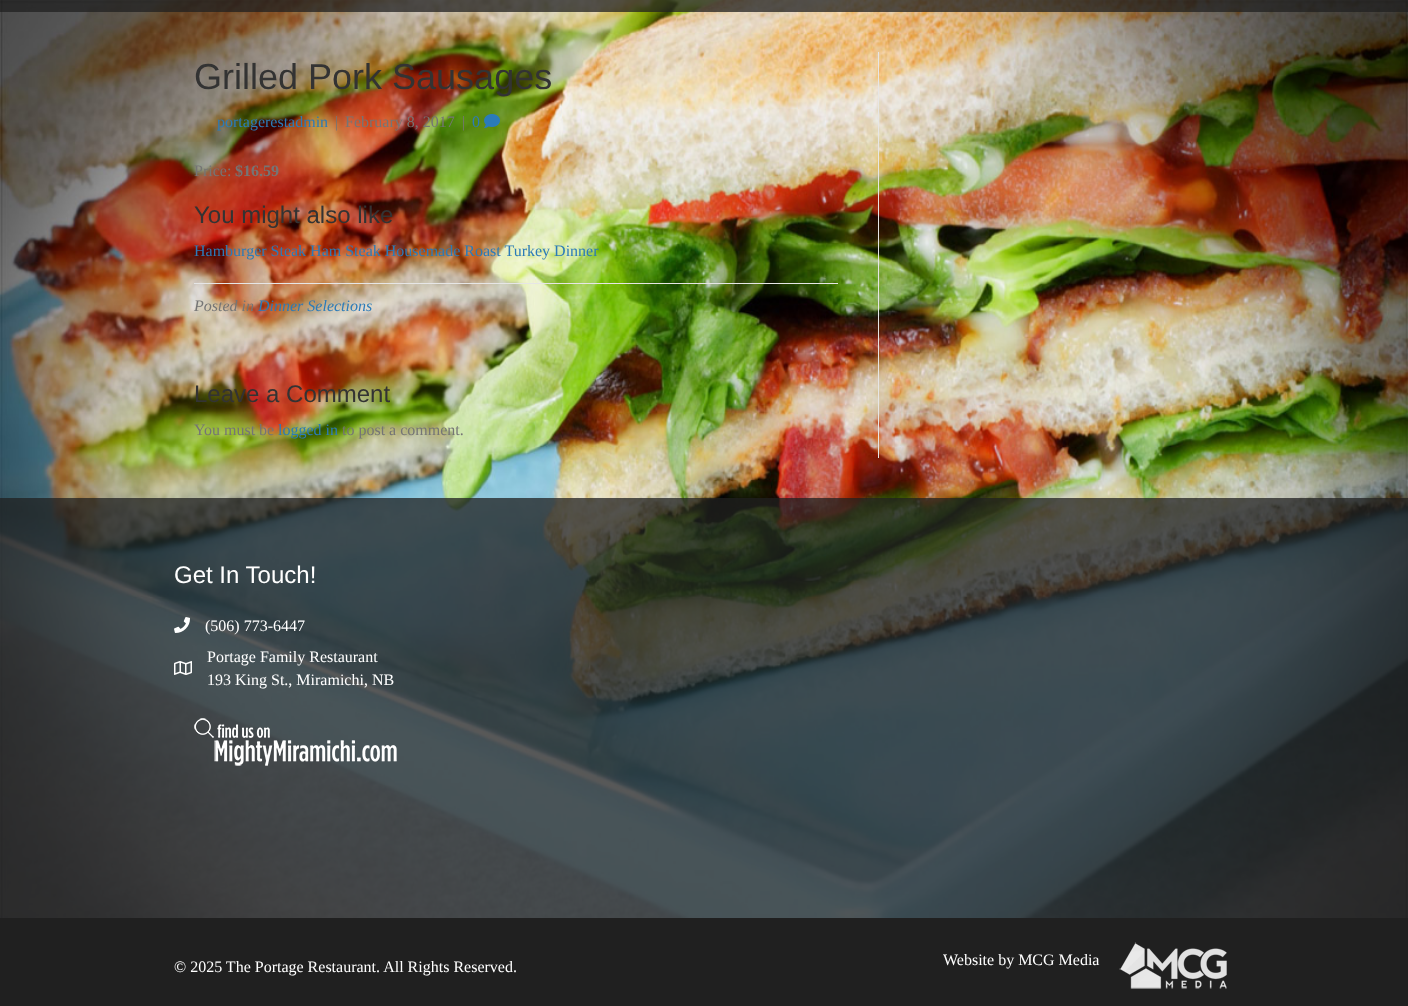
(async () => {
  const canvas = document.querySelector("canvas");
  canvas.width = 1408;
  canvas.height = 1006;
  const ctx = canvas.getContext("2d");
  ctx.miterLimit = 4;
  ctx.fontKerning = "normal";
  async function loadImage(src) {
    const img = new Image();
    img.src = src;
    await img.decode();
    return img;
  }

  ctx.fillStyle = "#ffffff";
  ctx.fillRect(0, 0, 1408, 1006);
  ctx.drawImage(await loadImage("img/1.png"), 0, 0, 1408, 918);
  ctx.fillStyle = "rgba(32, 32, 32, 0.75)";
  ctx.fillRect(0, 0, 1408, 12);
  ctx.fillStyle = "#e6e6e6";
  ctx.fillRect(878, 52, 1, 406);
  ctx.drawImage(await loadImage("img/2.png"), 484, 114, 16, 14);
  ctx.fillRect(194, 283, 644, 1);
  ctx.fillStyle = "rgba(32, 32, 32, 0.75)";
  ctx.fillRect(0, 498, 1408, 420);
  ctx.drawImage(await loadImage("img/3.png"), 174, 617, 16, 16);
  ctx.drawImage(await loadImage("img/4.png"), 174, 661, 18, 14);
  ctx.drawImage(await loadImage("img/5.png"), 194, 718, 203, 48);
  ctx.fillStyle = "#202020";
  ctx.fillRect(0, 918, 1408, 88);
  ctx.drawImage(await loadImage("img/6.png"), 1119, 942, 108, 47);
  ctx.font = "36px Liberation Sans";
  ctx.fillStyle = "#333333";
  ctx.fillText("Grilled Pork Sausages", 194, 89);
  ctx.font = "16px Liberation Serif";
  ctx.fillStyle = "#2b7bb9";
  ctx.fillText("portagerestadmin", 217, 127);
  ctx.fillStyle = "#757575";
  for (const [text, x, y] of [
    ["|", 335, 127],
    ["February 8, 2017", 345, 127],
    ["|", 462, 127],
  ]) {
    ctx.fillText(text, x, y);
  }
  ctx.fillStyle = "#2b7bb9";
  ctx.fillText("0", 472, 127);
  ctx.fillStyle = "#757575";
  ctx.fillText("Price:", 194, 176);
  ctx.font = "bold 16px Liberation Serif";
  ctx.fillText("$16.59", 235, 176);
  ctx.font = "24px Liberation Sans";
  ctx.fillStyle = "#333333";
  ctx.fillText("You might also like", 194, 223);
  ctx.font = "16px Liberation Serif";
  ctx.fillStyle = "#2b7bb9";
  ctx.fillText("Hamburger Steak Ham Steak Housemade Roast Turkey Dinner", 194, 256);
  ctx.font = "italic 16px Liberation Serif";
  ctx.fillStyle = "#757575";
  ctx.fillText("Posted in", 194, 311);
  ctx.fillStyle = "#2b7bb9";
  ctx.fillText("Dinner Selections", 258, 311);
  ctx.font = "24px Liberation Sans";
  ctx.fillStyle = "#333333";
  ctx.fillText("Leave a Comment", 194, 402);
  ctx.font = "16px Liberation Serif";
  ctx.fillStyle = "#757575";
  ctx.fillText("You must be", 194, 435);
  ctx.fillStyle = "#2b7bb9";
  ctx.fillText("logged in", 278, 435);
  ctx.fillStyle = "#757575";
  ctx.fillText("to post a comment.", 342, 435);
  ctx.font = "24px Liberation Sans";
  ctx.fillStyle = "#ffffff";
  ctx.fillText("Get In Touch!", 174, 583);
  ctx.font = "16px Liberation Serif";
  for (const [text, x, y] of [
    ["(506) 773-6447", 205, 631],
    ["Portage Family Restaurant", 207, 662],
    ["193 King St., Miramichi, NB", 207, 685],
    ["© 2025 The Portage Restaurant. All Rights Reserved.", 174, 972],
    ["Website by MCG Media", 943, 965],
  ]) {
    ctx.fillText(text, x, y);
  }
})();
